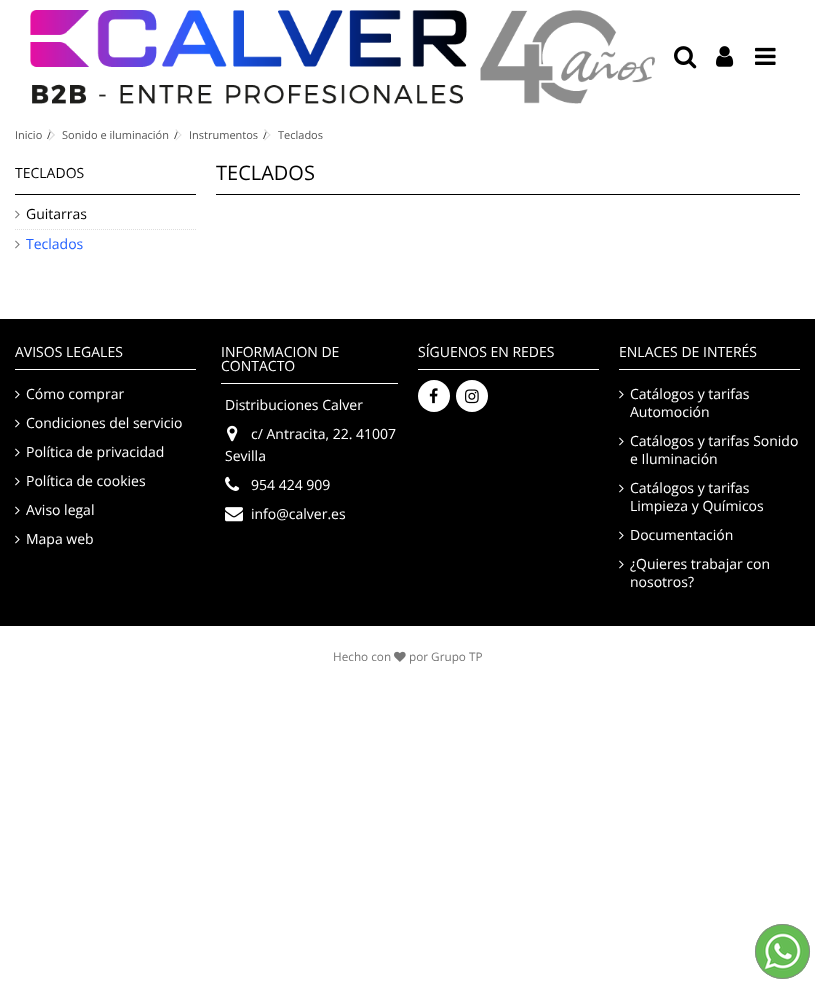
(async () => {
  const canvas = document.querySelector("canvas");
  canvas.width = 815;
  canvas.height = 984;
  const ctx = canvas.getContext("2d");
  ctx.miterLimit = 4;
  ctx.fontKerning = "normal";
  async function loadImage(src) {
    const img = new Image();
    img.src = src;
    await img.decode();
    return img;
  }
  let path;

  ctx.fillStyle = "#ffffff";
  ctx.fillRect(0, 0, 815, 984);
  ctx.drawImage(await loadImage("img/1.png"), 30, 10, 625, 94);
  ctx.drawImage(await loadImage("img/2.png"), 674, 46, 23, 23);
  ctx.drawImage(await loadImage("img/3.png"), 716, 46, 18, 21);
  ctx.drawImage(await loadImage("img/4.png"), 755, 47, 21, 18);
  ctx.fillStyle = "#000000";
  ctx.fillRect(15, 194, 181, 1);
  ctx.drawImage(await loadImage("img/5.png"), 15, 210, 5, 9);
  path = new Path2D("M15 229.5H196");
  ctx.strokeStyle = "#dddddd";
  ctx.setLineDash([1, 1]);
  ctx.stroke(path);
  ctx.drawImage(await loadImage("img/5.png"), 15, 240, 5, 9);
  for (const [x, y, w, h, color] of [
    [216, 194, 584, 1, "#000000"],
    [0, 319, 815, 307, "#000000"],
    [15, 369, 181, 1, "#ffffff"],
  ]) {
    ctx.fillStyle = color;
    ctx.fillRect(x, y, w, h);
  }
  ctx.drawImage(await loadImage("img/6.png"), 15, 390, 5, 9);
  ctx.drawImage(await loadImage("img/6.png"), 15, 419, 5, 9);
  ctx.drawImage(await loadImage("img/6.png"), 15, 448, 5, 9);
  ctx.drawImage(await loadImage("img/6.png"), 15, 477, 5, 9);
  ctx.drawImage(await loadImage("img/6.png"), 15, 506, 5, 9);
  ctx.drawImage(await loadImage("img/6.png"), 15, 535, 5, 9);
  ctx.fillRect(221, 383, 177, 1);
  ctx.drawImage(await loadImage("img/7.png"), 227, 425, 11, 17);
  ctx.drawImage(await loadImage("img/8.png"), 225, 476, 15, 15);
  ctx.drawImage(await loadImage("img/9.png"), 225, 507, 18, 15);
  ctx.fillRect(418, 369, 181, 1);
  ctx.beginPath();
  ctx.arc(434, 396, 16, 0, Math.PI * 2);
  ctx.fill();
  ctx.drawImage(await loadImage("img/10.png"), 429, 388, 9, 16);
  ctx.beginPath();
  ctx.arc(472, 396, 16, 0, Math.PI * 2);
  ctx.fill();
  ctx.drawImage(await loadImage("img/11.png"), 465, 389, 14, 15);
  ctx.fillRect(619, 369, 181, 1);
  ctx.drawImage(await loadImage("img/6.png"), 619, 390, 5, 9);
  ctx.drawImage(await loadImage("img/6.png"), 619, 437, 5, 9);
  ctx.drawImage(await loadImage("img/6.png"), 619, 484, 5, 9);
  ctx.drawImage(await loadImage("img/6.png"), 619, 531, 5, 9);
  ctx.drawImage(await loadImage("img/6.png"), 619, 560, 5, 9);
  ctx.fillStyle = "#65bc54";
  ctx.beginPath();
  ctx.arc(782.5, 951.5, 27.5, 0, Math.PI * 2);
  ctx.fill();
  ctx.drawImage(await loadImage("img/12.png"), 760, 929, 45, 45);
  ctx.beginPath();
  ctx.arc(782.5, 951.5, 27, 0, Math.PI * 2);
  ctx.strokeStyle = "#888888";
  ctx.setLineDash([]);
  ctx.stroke();
  ctx.drawImage(await loadImage("img/13.png"), 394, 651, 12, 11);
  ctx.font = "11px Open Sans";
  ctx.fillStyle = "#555555";
  ctx.fillText("Inicio", 15, 139);
  ctx.fillStyle = "#333333";
  ctx.fillText("/", 47, 139);
  ctx.fillStyle = "#dddddd";
  path = new Path2D("M49.5 129L55 135L54 135.5L48.5 130Z");
  ctx.fill(path);
  path = new Path2D("M54 134L55 135L49.5 140.5L48.5 140Z");
  ctx.fill(path);
  ctx.fillStyle = "#555555";
  ctx.fillText("Sonido e iluminación", 62, 139);
  ctx.fillStyle = "#333333";
  ctx.fillText("/", 174, 139);
  ctx.fillStyle = "#dddddd";
  path = new Path2D("M176 129L181.5 135L181 135.5L175.5 130Z");
  ctx.fill(path);
  path = new Path2D("M181 134L181.5 135L176 140.5L175.5 140Z");
  ctx.fill(path);
  ctx.fillStyle = "#555555";
  ctx.fillText("Instrumentos", 189, 139);
  ctx.fillStyle = "#333333";
  ctx.fillText("/", 263, 139);
  ctx.fillStyle = "#dddddd";
  path = new Path2D("M265 129L270.5 135L270 135.5L264 130Z");
  ctx.fill(path);
  path = new Path2D("M270 134L270.5 135L265 140.5L264 140Z");
  ctx.fill(path);
  ctx.fillStyle = "#555555";
  ctx.fillText("Teclados", 278, 139);
  ctx.font = "14px Open Sans";
  ctx.fillStyle = "#000000";
  ctx.fillText("TECLADOS", 15, 178);
  ctx.fillText("Guitarras", 26, 219);
  ctx.fillStyle = "#2361ff";
  ctx.fillText("Teclados", 26, 249);
  ctx.font = "20px Open Sans";
  ctx.fillStyle = "#000000";
  ctx.fillText("TECLADOS", 216, 180);
  ctx.font = "14px Open Sans";
  ctx.fillStyle = "#ffffff";
  for (const [text, x, y] of [
    ["AVISOS LEGALES", 15, 357],
    ["Cómo comprar", 26, 399],
    ["Condiciones del servicio", 26, 428],
    ["Política de privacidad", 26, 457],
    ["Política de cookies", 26, 486],
    ["Aviso legal", 26, 515],
    ["Mapa web", 26, 544],
    ["INFORMACION DE", 221, 357],
    ["CONTACTO", 221, 371],
    ["Distribuciones Calver", 225, 410],
    ["c/ Antracita, 22. 41007", 251, 439],
    ["Sevilla", 225, 461],
    ["954 424 909", 251, 490],
    ["info@calver.es", 251, 519],
    ["SÍGUENOS EN REDES", 418, 357],
    ["ENLACES DE INTERÉS", 619, 357],
    ["Catálogos y tarifas", 630, 399],
    ["Automoción", 630, 417],
    ["Catálogos y tarifas Sonido", 630, 446],
    ["e Iluminación", 630, 464],
    ["Catálogos y tarifas", 630, 493],
    ["Limpieza y Químicos", 630, 511],
    ["Documentación", 630, 540],
    ["¿Quieres trabajar con", 630, 569],
    ["nosotros?", 630, 587],
  ]) {
    ctx.fillText(text, x, y);
  }
  ctx.font = "11.75px Open Sans";
  ctx.fillStyle = "#777777";
  ctx.fillText("Hecho con", 333, 661);
  ctx.fillText("por Grupo TP", 409, 661);
})();
